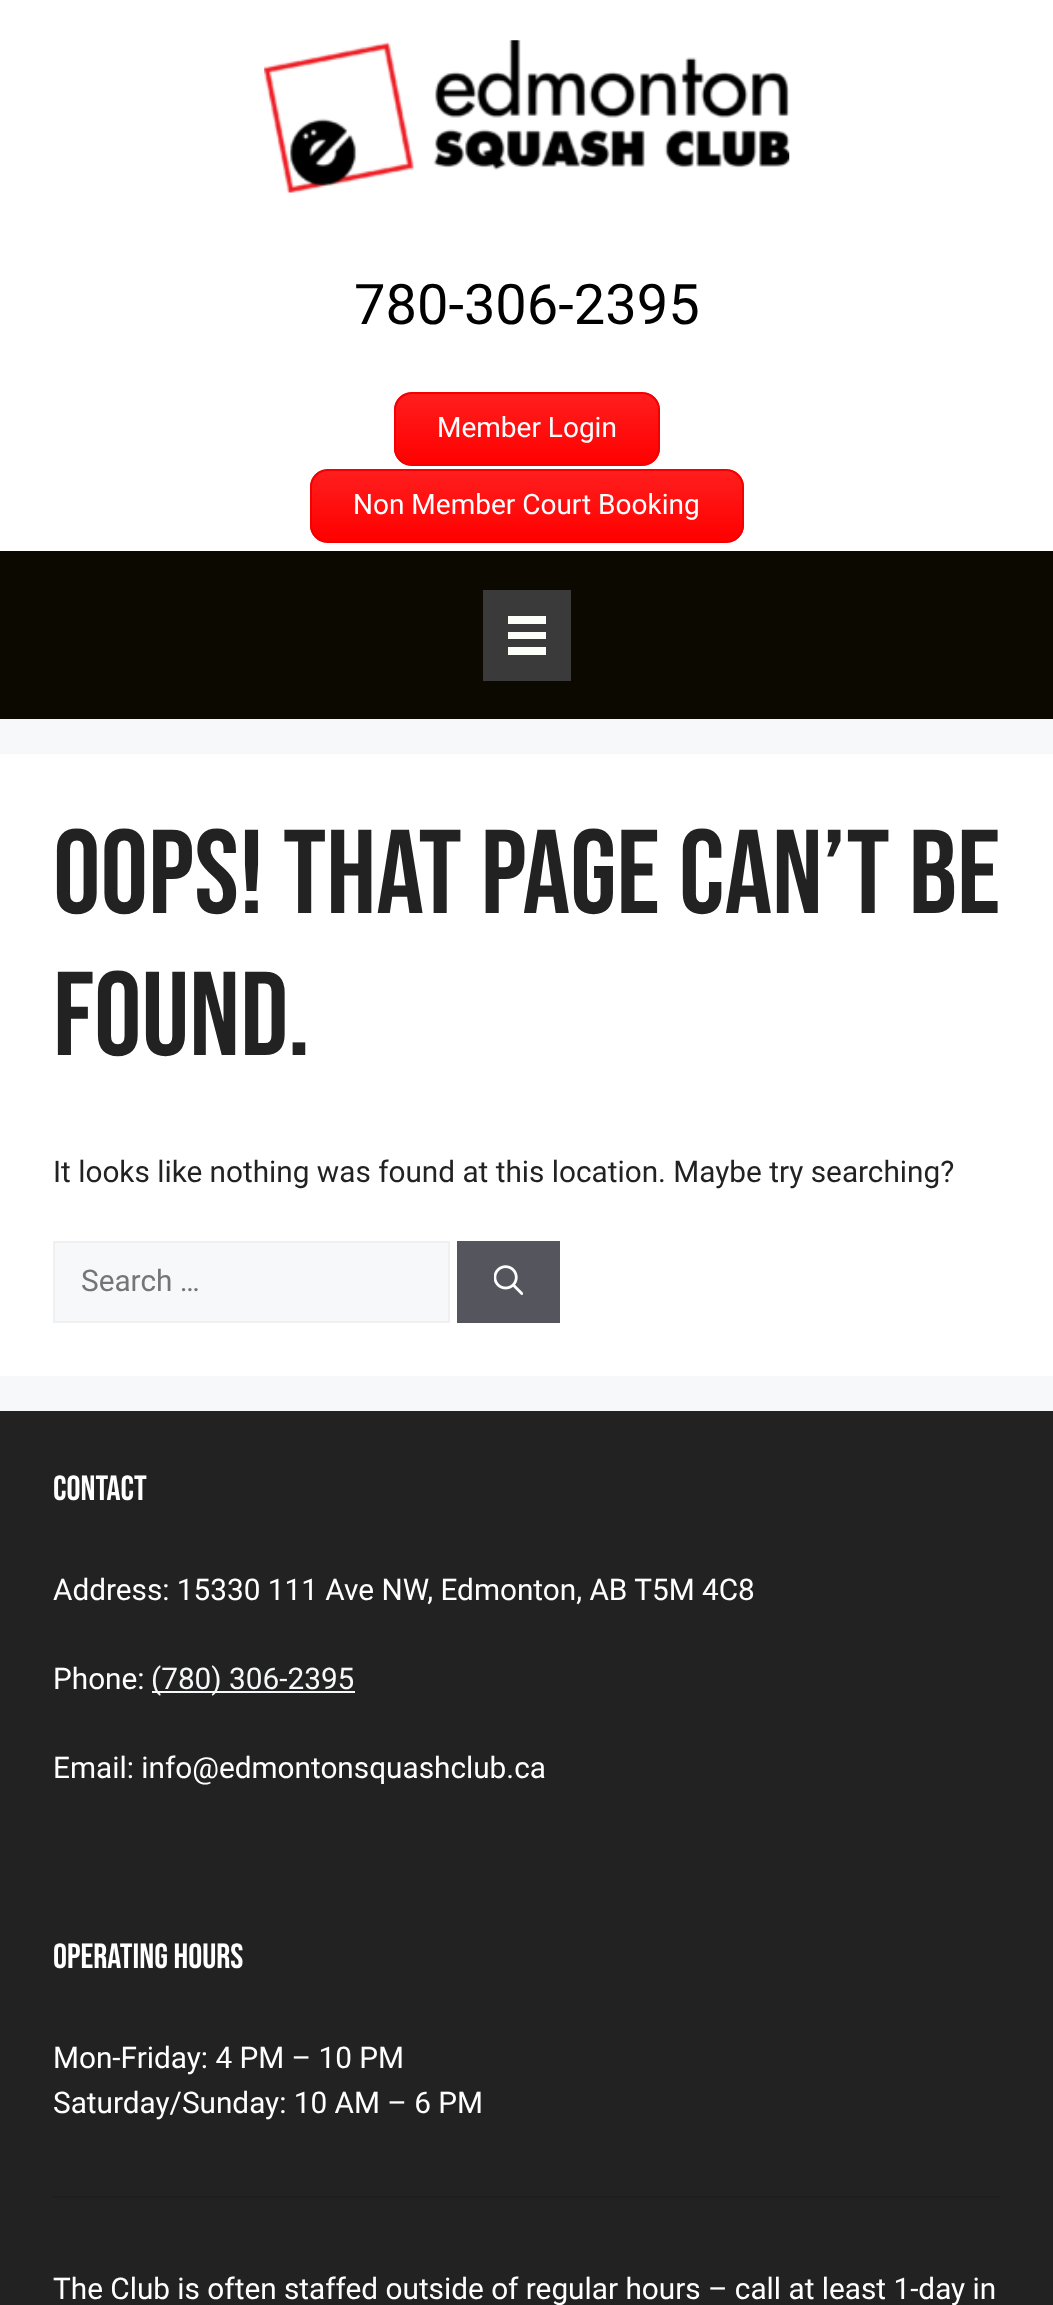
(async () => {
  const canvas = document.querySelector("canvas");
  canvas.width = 1053;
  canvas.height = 2305;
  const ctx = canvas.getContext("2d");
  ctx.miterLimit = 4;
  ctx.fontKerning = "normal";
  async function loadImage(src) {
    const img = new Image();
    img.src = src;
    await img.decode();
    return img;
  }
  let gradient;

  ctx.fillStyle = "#f7f8f9";
  ctx.fillRect(0, 0, 1053, 2305);
  ctx.fillStyle = "#ffffff";
  ctx.fillRect(0, 0, 1053, 551);
  ctx.drawImage(await loadImage("img/1.png"), 264, 40, 526, 153);
  ctx.save();
  ctx.beginPath();
  ctx.roundRect(394, 392, 266, 74, 18);
  ctx.clip();
  gradient = ctx.createLinearGradient(527, 394, 527, 464);
  gradient.addColorStop(0, "#ff1e1e");
  gradient.addColorStop(1, "#ff0000");
  ctx.fillStyle = gradient;
  ctx.fillRect(394, 394, 266, 70);
  ctx.restore();
  ctx.beginPath();
  ctx.roundRect(395, 393, 264, 72, 17);
  ctx.strokeStyle = "#f30000";
  ctx.lineWidth = 2;
  ctx.stroke();
  ctx.save();
  ctx.beginPath();
  ctx.roundRect(310, 469, 434, 74, 18);
  ctx.clip();
  gradient = ctx.createLinearGradient(527, 471, 527, 541);
  gradient.addColorStop(0, "#ff1e1e");
  gradient.addColorStop(1, "#ff0000");
  ctx.fillStyle = gradient;
  ctx.fillRect(310, 471, 434, 70);
  ctx.restore();
  ctx.beginPath();
  ctx.roundRect(311, 470, 432, 72, 17);
  ctx.stroke();
  for (const [x, y, w, h, color] of [
    [0, 551, 1053, 168, "#0c0900"],
    [483, 590, 88, 91, "#3a3a3a"],
    [508, 616, 38, 8, "#fcfff7"],
    [508, 632, 38, 7, "#fcfff7"],
    [508, 647, 38, 8, "#fcfff7"],
    [0, 754, 1053, 622, "#ffffff"],
  ]) {
    ctx.fillStyle = color;
    ctx.fillRect(x, y, w, h);
  }
  ctx.fillStyle = "#f7f8f9";
  ctx.beginPath();
  ctx.rect(54, 1242, 395, 80);
  ctx.fill();
  ctx.strokeStyle = "#f0f0f0";
  ctx.stroke();
  ctx.fillStyle = "#55555e";
  ctx.fillRect(457, 1241, 103, 82);
  ctx.drawImage(await loadImage("img/2.png"), 494, 1265, 29, 30);
  for (const [x, y, w, h, color] of [
    [0, 1411, 1053, 894, "#222222"],
    [152, 1691, 203, 2, "#f7f8f9"],
    [53, 2196, 948, 2, "#1f1f1f"],
  ]) {
    ctx.fillStyle = color;
    ctx.fillRect(x, y, w, h);
  }
  ctx.font = "56px Roboto";
  ctx.fillStyle = "#000000";
  ctx.fillText("780-306-2395", 354, 324);
  ctx.font = "28px Roboto";
  ctx.fillStyle = "#ffffff";
  ctx.fillText("Member Login", 437, 437);
  ctx.fillText("Non Member Court Booking", 353, 514);
  ctx.font = "119px Bebas Neue";
  ctx.fillStyle = "#222222";
  ctx.fillText("Oops! That page can’t be", 53, 913);
  ctx.fillText("found.", 53, 1055);
  ctx.font = "29.75px Roboto";
  ctx.fillText("It looks like nothing was found at this location. Maybe try searching?", 53, 1182);
  ctx.fillStyle = "#757575";
  ctx.fillText("Search …", 81, 1291);
  ctx.font = "35px Bebas Neue";
  ctx.fillStyle = "#ffffff";
  ctx.fillText("Contact", 53, 1500);
  ctx.font = "29.75px Roboto";
  ctx.fillText("Address: 15330 111 Ave NW, Edmonton, AB T5M 4C8", 53, 1600);
  ctx.fillText("Phone:", 53, 1689);
  ctx.fillStyle = "#f7f8f9";
  ctx.fillText("(780) 306-2395", 151, 1689);
  ctx.fillStyle = "#ffffff";
  ctx.fillText("Email: info@edmontonsquashclub.ca", 53, 1778);
  ctx.font = "35px Bebas Neue";
  ctx.fillText("Operating Hours", 53, 1968);
  ctx.font = "29.75px Roboto";
  for (const [text, x, y] of [
    ["Mon-Friday: 4 PM – 10 PM", 53, 2068],
    ["Saturday/Sunday: 10 AM – 6 PM", 53, 2113],
    ["The Club is often staffed outside of regular hours – call at least 1-day in", 53, 2299],
  ]) {
    ctx.fillText(text, x, y);
  }
})();
